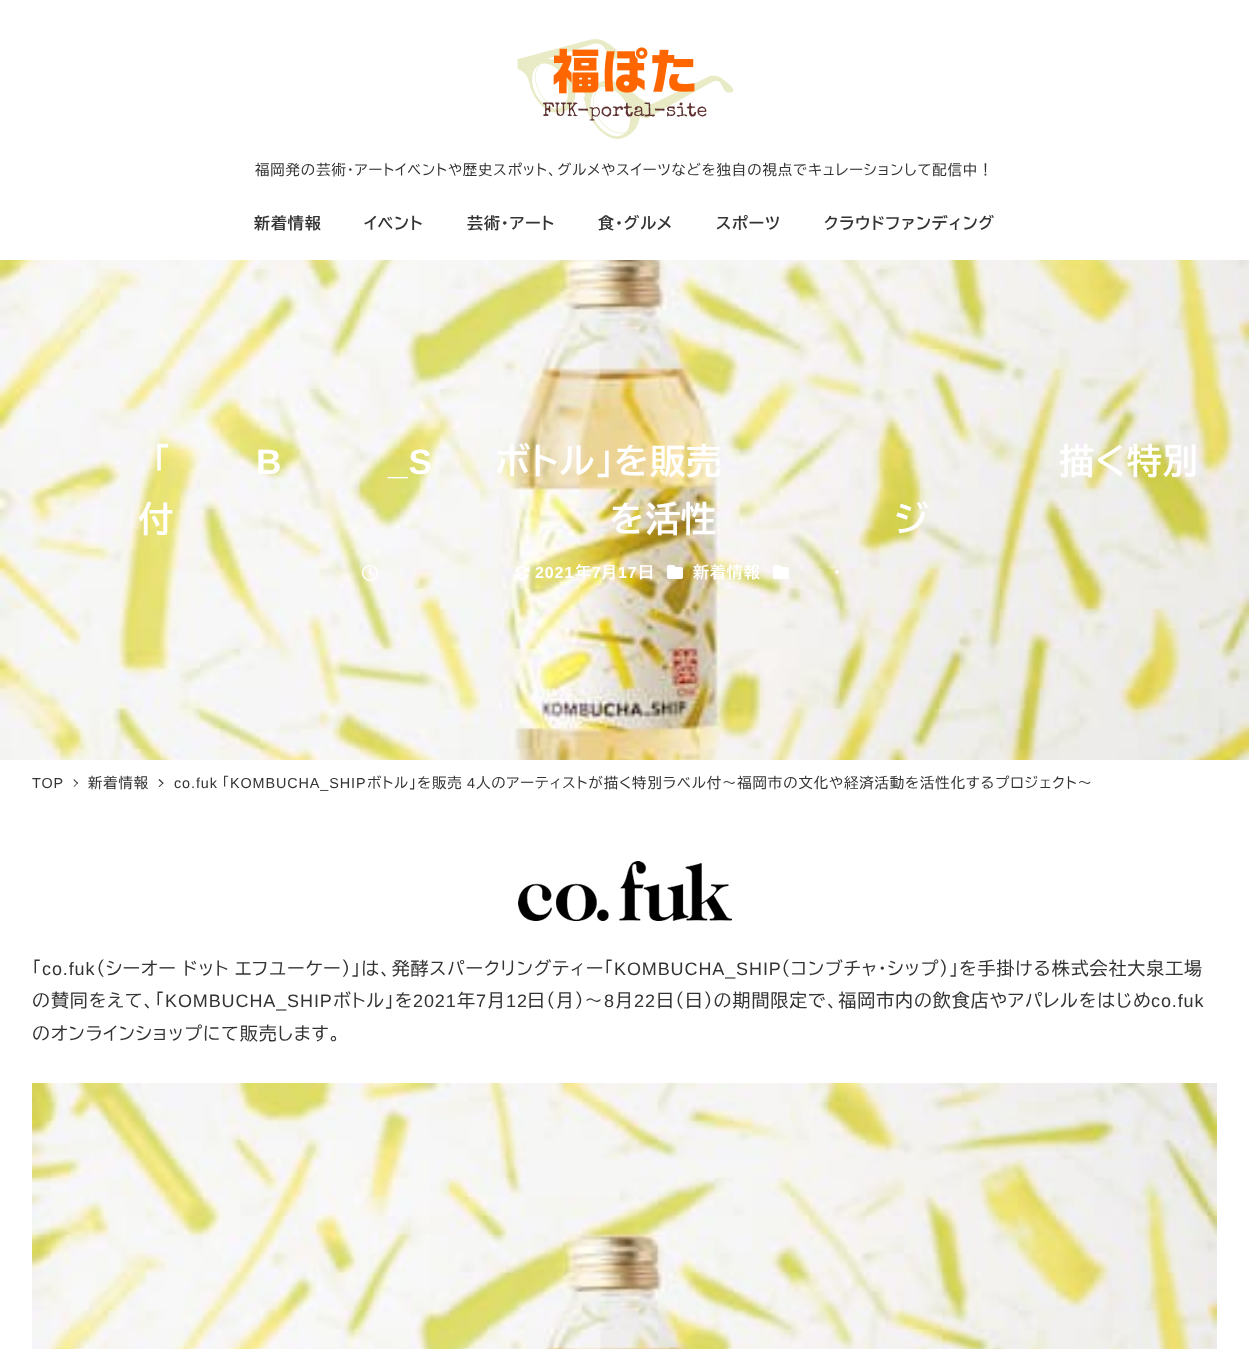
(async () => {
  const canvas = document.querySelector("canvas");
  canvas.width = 1249;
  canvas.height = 1349;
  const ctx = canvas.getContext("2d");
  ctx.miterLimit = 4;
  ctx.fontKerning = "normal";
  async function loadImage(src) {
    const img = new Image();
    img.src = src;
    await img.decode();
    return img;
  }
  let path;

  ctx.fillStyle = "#ffffff";
  ctx.fillRect(0, 0, 1249, 1349);
  ctx.drawImage(await loadImage("img/1.png"), 517, 39, 217, 100);
  ctx.drawImage(await loadImage("img/2.png"), 0, 260, 1249, 500);
  ctx.drawImage(await loadImage("img/3.png"), 362, 565, 16, 16);
  ctx.drawImage(await loadImage("img/4.png"), 514, 566, 16, 14);
  ctx.drawImage(await loadImage("img/5.png"), 667, 565, 16, 14);
  ctx.drawImage(await loadImage("img/6.png"), 773, 565, 16, 14);
  ctx.fillStyle = "#333333";
  path = new Path2D("M74 779L78 783L77.5 784L73.5 780Z");
  ctx.fill(path);
  path = new Path2D("M77.5 782.5L78 783L74 787L73.5 786.5Z");
  ctx.fill(path);
  path = new Path2D("M159.5 779L163.5 783L163 784L158.5 780Z");
  ctx.fill(path);
  path = new Path2D("M163 782.5L163.5 783L159.5 787L158.5 786.5Z");
  ctx.fill(path);
  ctx.drawImage(await loadImage("img/7.png"), 518, 861, 214, 60);
  ctx.drawImage(await loadImage("img/8.png"), 32, 1083, 1185, 266);
  ctx.letterSpacing = "0.9px";
  ctx.font = "14.4px BIZ UDPGothic";
  ctx.fillText("福岡発の芸術・アートイベントや歴史スポット、グルメやスイーツなどを独自の視点でキュレーションして配信中！", 255, 175);
  ctx.font = "bold 16px BIZ UDPGothic";
  for (const [text, x, y] of [
    ["新着情報", 254, 229],
    ["イベント", 364, 229],
    ["芸術・アート", 467, 229],
    ["食・グルメ", 598, 229],
    ["スポーツ", 716, 229],
    ["クラウドファンディング", 824, 229],
  ]) {
    ctx.fillText(text, x, y);
  }
  ctx.font = "bold 35.25px BIZ UDPGothic";
  ctx.fillStyle = "#ffffff";
  ctx.fillText("「", 153, 474);
  ctx.font = "bold 35.25px Liberation Sans";
  ctx.fillText("B", 256, 474);
  ctx.fillText("_S", 388, 474);
  ctx.font = "bold 35.25px BIZ UDPGothic";
  for (const [text, x, y] of [
    ["ボトル」を販売", 495, 474],
    ["描く特別", 1059, 474],
    ["付", 138, 532],
    ["を活性", 609, 532],
    ["ジ", 895, 532],
  ]) {
    ctx.fillText(text, x, y);
  }
  ctx.font = "bold 16px Liberation Sans";
  ctx.fillText("2021", 535, 578);
  ctx.font = "bold 16px BIZ UDPGothic";
  ctx.fillText("年", 575, 578);
  ctx.font = "bold 16px Liberation Sans";
  ctx.fillText("7", 592, 578);
  ctx.font = "bold 16px BIZ UDPGothic";
  ctx.fillText("月", 601, 578);
  ctx.font = "bold 16px Liberation Sans";
  ctx.fillText("17", 618, 578);
  ctx.font = "bold 16px BIZ UDPGothic";
  for (const [text, x, y] of [
    ["日", 638, 578],
    ["新着情報", 693, 578],
    ["・", 833, 578],
  ]) {
    ctx.fillText(text, x, y);
  }
  ctx.font = "14.4px Liberation Sans";
  ctx.fillStyle = "#333333";
  ctx.fillText("TOP", 32, 788);
  ctx.font = "14.4px BIZ UDPGothic";
  ctx.fillText("新着情報", 88, 788);
  ctx.font = "14.4px Liberation Sans";
  ctx.fillText("co.fuk", 174, 788);
  ctx.font = "14.4px BIZ UDPGothic";
  ctx.fillText("「", 222, 788);
  ctx.font = "14.4px Liberation Sans";
  ctx.fillText("KOMBUCHA_SHIP", 230, 788);
  ctx.font = "14.4px BIZ UDPGothic";
  ctx.fillText("ボトル」を販売", 367, 788);
  ctx.font = "14.4px Liberation Sans";
  ctx.fillText("4", 467, 788);
  ctx.font = "14.4px BIZ UDPGothic";
  ctx.fillText("人のアーティストが描く特別ラベル付～福岡市の文化や経済活動を活性化するプロジェクト～", 476, 788);
  ctx.font = "18px BIZ UDPGothic";
  ctx.fillText("「", 32, 975);
  ctx.font = "18px Liberation Sans";
  ctx.fillText("co.fuk", 42, 975);
  ctx.wordSpacing = "-1px";
  ctx.font = "18px BIZ UDPGothic";
  ctx.fillText("（シーオー ドット エフユーケー）」は、発酵スパークリングティー「", 96, 975);
  ctx.wordSpacing = "0px";
  ctx.font = "18px Liberation Sans";
  ctx.fillText("KOMBUCHA_SHIP", 614, 975);
  ctx.font = "18px BIZ UDPGothic";
  ctx.fillText("（コンブチャ・シップ）」を手掛ける株式会社大泉工場", 781, 975);
  ctx.fillText("の賛同をえて、「", 32, 1007);
  ctx.font = "18px Liberation Sans";
  ctx.fillText("KOMBUCHA_SHIP", 165, 1007);
  ctx.font = "18px BIZ UDPGothic";
  ctx.fillText("ボトル」を", 333, 1007);
  ctx.font = "18px Liberation Sans";
  ctx.fillText("2021", 413, 1007);
  ctx.font = "18px BIZ UDPGothic";
  ctx.fillText("年", 457, 1007);
  ctx.font = "18px Liberation Sans";
  ctx.fillText("7", 476, 1007);
  ctx.font = "18px BIZ UDPGothic";
  ctx.fillText("月", 487, 1007);
  ctx.font = "18px Liberation Sans";
  ctx.fillText("12", 506, 1007);
  ctx.font = "18px BIZ UDPGothic";
  ctx.fillText("日（月）～", 527, 1007);
  ctx.font = "18px Liberation Sans";
  ctx.fillText("8", 604, 1007);
  ctx.font = "18px BIZ UDPGothic";
  ctx.fillText("月", 615, 1007);
  ctx.font = "18px Liberation Sans";
  ctx.fillText("22", 634, 1007);
  ctx.font = "18px BIZ UDPGothic";
  ctx.fillText("日（日）の期間限定で、福岡市内の飲食店やアパレルをはじめ", 656, 1007);
  ctx.font = "18px Liberation Sans";
  ctx.fillText("co.fuk", 1151, 1007);
  ctx.font = "18px BIZ UDPGothic";
  ctx.fillText("のオンラインショップにて販売します。", 32, 1040);
})();
